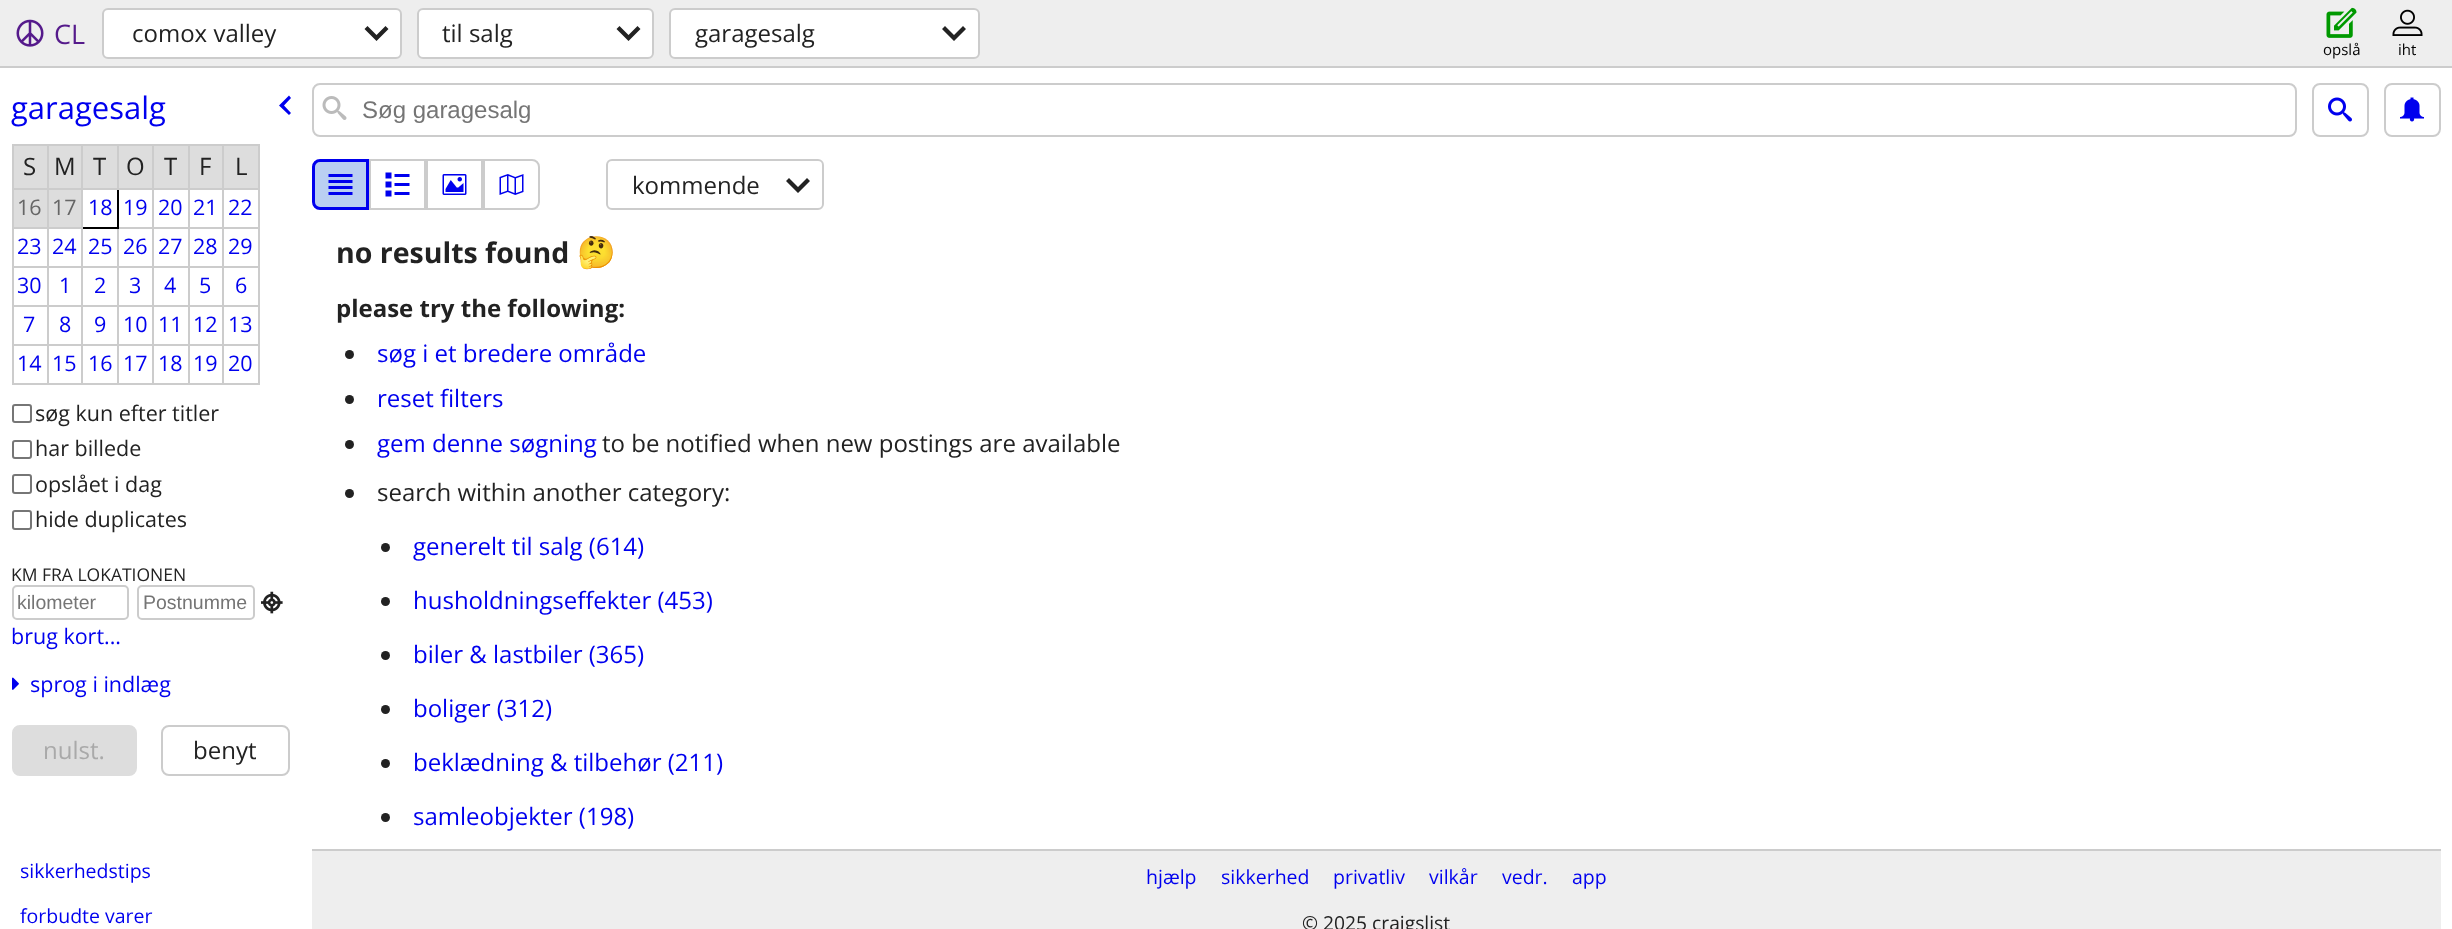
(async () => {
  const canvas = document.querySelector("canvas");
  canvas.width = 2452;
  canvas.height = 929;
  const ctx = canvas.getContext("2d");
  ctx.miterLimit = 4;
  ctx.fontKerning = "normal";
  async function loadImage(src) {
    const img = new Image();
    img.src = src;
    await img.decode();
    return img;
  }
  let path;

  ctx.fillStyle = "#ffffff";
  ctx.fillRect(0, 0, 2452, 929);
  ctx.fillStyle = "#eeeeee";
  ctx.fillRect(0, 0, 2452, 66);
  ctx.fillStyle = "#cccccc";
  ctx.fillRect(0, 66, 2452, 2);
  ctx.drawImage(await loadImage("img/1.png"), 16, 19, 28, 28);
  ctx.fillStyle = "#ffffff";
  ctx.beginPath();
  ctx.roundRect(103, 9, 298, 49, 5);
  ctx.fill();
  ctx.strokeStyle = "#cccccc";
  ctx.lineWidth = 2;
  ctx.stroke();
  ctx.fillStyle = "#222222";
  path = new Path2D("M388.5 29L385.5 26L376.5 35L367.5 26L364.5 29L376.5 41Z");
  ctx.fill(path);
  ctx.fillStyle = "#ffffff";
  ctx.beginPath();
  ctx.roundRect(418, 9, 235, 49, 5);
  ctx.fill();
  ctx.stroke();
  ctx.fillStyle = "#222222";
  path = new Path2D("M640.5 29L637.5 26L628.5 35L619.5 26L616.5 29L628.5 41Z");
  ctx.fill(path);
  ctx.fillStyle = "#ffffff";
  ctx.beginPath();
  ctx.roundRect(670, 9, 309, 49, 5);
  ctx.fill();
  ctx.stroke();
  ctx.fillStyle = "#222222";
  path = new Path2D("M966 29L963 26L954 35L945 26L942 29L954 41Z");
  ctx.fill(path);
  ctx.drawImage(await loadImage("img/2.png"), 2326, 7, 31, 31);
  ctx.drawImage(await loadImage("img/3.png"), 2392, 9, 31, 27);
  ctx.fillStyle = "#0000ee";
  path = new Path2D("M289 115L291 113L284 105.5L291 98L289 95.5L279 105.5Z");
  ctx.fill(path);
  for (const [x, y, w, h, color] of [
    [14, 146, 33, 42, "#dddddd"],
    [222, 144, 38, 2, "#cccccc"],
    [222, 188, 38, 2, "#cccccc"],
    [222, 227, 38, 2, "#cccccc"],
    [222, 266, 38, 2, "#cccccc"],
    [222, 305, 38, 2, "#cccccc"],
    [222, 344, 38, 2, "#cccccc"],
    [258, 344, 2, 40, "#cccccc"],
    [222, 383, 38, 2, "#cccccc"],
    [222, 344, 2, 40, "#cccccc"],
    [188, 344, 36, 2, "#cccccc"],
    [222, 305, 2, 40, "#cccccc"],
    [188, 305, 36, 2, "#cccccc"],
    [222, 266, 2, 40, "#cccccc"],
    [188, 266, 36, 2, "#cccccc"],
    [222, 227, 2, 40, "#cccccc"],
    [188, 227, 36, 2, "#cccccc"],
    [222, 188, 2, 40, "#cccccc"],
    [188, 188, 36, 2, "#cccccc"],
    [222, 144, 2, 45, "#cccccc"],
    [188, 144, 36, 2, "#cccccc"],
    [188, 383, 36, 2, "#cccccc"],
    [188, 344, 2, 40, "#cccccc"],
    [152, 344, 37, 2, "#cccccc"],
    [188, 305, 2, 40, "#cccccc"],
    [152, 305, 37, 2, "#cccccc"],
    [188, 266, 2, 40, "#cccccc"],
    [152, 266, 37, 2, "#cccccc"],
    [188, 227, 2, 40, "#cccccc"],
    [152, 227, 37, 2, "#cccccc"],
    [188, 188, 2, 40, "#cccccc"],
    [152, 188, 37, 2, "#cccccc"],
    [188, 144, 2, 45, "#cccccc"],
    [152, 144, 37, 2, "#cccccc"],
    [152, 383, 37, 2, "#cccccc"],
    [152, 344, 2, 40, "#cccccc"],
    [117, 344, 36, 2, "#cccccc"],
    [152, 305, 2, 40, "#cccccc"],
    [117, 305, 36, 2, "#cccccc"],
    [152, 266, 2, 40, "#cccccc"],
    [117, 266, 36, 2, "#cccccc"],
    [152, 227, 2, 40, "#cccccc"],
    [117, 227, 36, 2, "#cccccc"],
    [152, 188, 2, 40, "#cccccc"],
    [152, 144, 2, 45, "#cccccc"],
    [117, 144, 36, 2, "#cccccc"],
    [117, 383, 36, 2, "#cccccc"],
    [117, 344, 2, 40, "#cccccc"],
    [81, 344, 38, 2, "#cccccc"],
    [117, 305, 2, 40, "#cccccc"],
    [81, 305, 38, 2, "#cccccc"],
    [117, 266, 2, 40, "#cccccc"],
    [81, 266, 38, 2, "#cccccc"],
    [117, 227, 2, 40, "#cccccc"],
    [117, 188, 2, 40, "#000000"],
    [117, 188, 36, 2, "#cccccc"],
    [117, 144, 2, 45, "#cccccc"],
    [81, 144, 38, 2, "#cccccc"],
    [47, 188, 36, 2, "#cccccc"],
    [81, 383, 38, 2, "#cccccc"],
    [81, 344, 2, 40, "#cccccc"],
    [47, 344, 36, 2, "#cccccc"],
    [81, 305, 2, 40, "#cccccc"],
    [47, 305, 36, 2, "#cccccc"],
    [81, 266, 2, 40, "#cccccc"],
    [47, 266, 36, 2, "#cccccc"],
    [81, 227, 2, 40, "#cccccc"],
    [81, 227, 38, 2, "#000000"],
    [81, 188, 2, 40, "#cccccc"],
    [81, 188, 38, 2, "#cccccc"],
    [81, 144, 2, 45, "#cccccc"],
    [47, 144, 36, 2, "#cccccc"],
    [47, 383, 36, 2, "#cccccc"],
    [47, 344, 2, 40, "#cccccc"],
    [12, 344, 36, 2, "#cccccc"],
    [47, 305, 2, 40, "#cccccc"],
    [12, 305, 36, 2, "#cccccc"],
    [47, 266, 2, 40, "#cccccc"],
    [12, 266, 36, 2, "#cccccc"],
    [47, 227, 2, 40, "#cccccc"],
    [12, 227, 36, 2, "#cccccc"],
    [47, 227, 36, 2, "#cccccc"],
    [47, 188, 2, 40, "#cccccc"],
    [12, 188, 36, 2, "#cccccc"],
    [47, 144, 2, 45, "#cccccc"],
    [12, 144, 36, 2, "#cccccc"],
    [12, 383, 36, 2, "#cccccc"],
    [12, 344, 2, 40, "#cccccc"],
    [12, 305, 2, 40, "#cccccc"],
    [12, 266, 2, 40, "#cccccc"],
    [12, 227, 2, 40, "#cccccc"],
    [12, 188, 2, 40, "#cccccc"],
    [12, 144, 2, 45, "#cccccc"],
    [49, 146, 32, 42, "#dddddd"],
    [83, 146, 34, 42, "#dddddd"],
    [119, 146, 33, 42, "#dddddd"],
    [154, 146, 34, 42, "#dddddd"],
    [190, 146, 32, 42, "#dddddd"],
    [224, 146, 34, 42, "#dddddd"],
    [258, 305, 2, 40, "#cccccc"],
    [258, 266, 2, 40, "#cccccc"],
    [258, 227, 2, 40, "#cccccc"],
    [258, 188, 2, 40, "#cccccc"],
    [258, 144, 2, 45, "#cccccc"],
    [14, 190, 33, 37, "#dddddd"],
    [49, 190, 32, 37, "#dddddd"],
  ]) {
    ctx.fillStyle = color;
    ctx.fillRect(x, y, w, h);
  }
  ctx.beginPath();
  ctx.roundRect(13, 405, 18, 17, 2);
  ctx.strokeStyle = "#767676";
  ctx.stroke();
  ctx.beginPath();
  ctx.roundRect(13, 441, 18, 17, 2);
  ctx.stroke();
  ctx.beginPath();
  ctx.roundRect(13, 475, 18, 18, 2);
  ctx.stroke();
  ctx.beginPath();
  ctx.roundRect(13, 511, 18, 18, 2);
  ctx.stroke();
  ctx.beginPath();
  ctx.roundRect(13, 586, 115, 33, 4);
  ctx.strokeStyle = "#cccccc";
  ctx.stroke();
  ctx.beginPath();
  ctx.roundRect(138, 586, 116, 33, 4);
  ctx.stroke();
  ctx.drawImage(await loadImage("img/4.png"), 261, 591, 22, 23);
  ctx.drawImage(await loadImage("img/5.png"), 12, 677, 7, 13);
  ctx.beginPath();
  ctx.roundRect(13, 726, 123, 49, 7);
  ctx.fill();
  ctx.strokeStyle = "#dddddd";
  ctx.stroke();
  ctx.beginPath();
  ctx.roundRect(162, 726, 127, 49, 7);
  ctx.strokeStyle = "#cccccc";
  ctx.stroke();
  ctx.beginPath();
  ctx.roundRect(313, 84, 1983, 52, 7);
  ctx.stroke();
  ctx.drawImage(await loadImage("img/6.png"), 322, 96, 25, 24);
  ctx.beginPath();
  ctx.roundRect(2313, 84, 55, 52, 7);
  ctx.stroke();
  ctx.drawImage(await loadImage("img/7.png"), 2328, 97, 24, 25);
  ctx.beginPath();
  ctx.roundRect(2385, 84, 55, 52, 7);
  ctx.stroke();
  ctx.drawImage(await loadImage("img/8.png"), 2400, 97, 24, 25);
  ctx.fillStyle = "#bacff2";
  ctx.beginPath();
  ctx.roundRect(313.5, 160.5, 54, 48, [6.5, 0, 0, 6.5]);
  ctx.fill();
  ctx.strokeStyle = "#0000ee";
  ctx.lineWidth = 3;
  ctx.stroke();
  ctx.drawImage(await loadImage("img/9.png"), 328, 174, 25, 21);
  ctx.strokeStyle = "#cccccc";
  ctx.lineWidth = 2;
  ctx.strokeRect(370, 160, 55, 49);
  ctx.drawImage(await loadImage("img/10.png"), 385, 172, 25, 25);
  ctx.strokeRect(427, 160, 55, 49);
  ctx.drawImage(await loadImage("img/11.png"), 442, 174, 25, 21);
  ctx.beginPath();
  ctx.roundRect(484, 160, 55, 49, [0, 7, 7, 0]);
  ctx.stroke();
  ctx.drawImage(await loadImage("img/12.png"), 499, 174, 25, 21);
  ctx.beginPath();
  ctx.roundRect(607, 160, 216, 49, 5);
  ctx.stroke();
  ctx.fillStyle = "#222222";
  path = new Path2D("M810 181L807 178L798 187L789 178L786 181L798 193Z");
  ctx.fill(path);
  ctx.beginPath();
  ctx.arc(349.5, 354.5, 4.5, 0, Math.PI * 2);
  ctx.fill();
  ctx.beginPath();
  ctx.arc(349.5, 399.5, 4.5, 0, Math.PI * 2);
  ctx.fill();
  ctx.beginPath();
  ctx.arc(349.5, 444.5, 4.5, 0, Math.PI * 2);
  ctx.fill();
  ctx.beginPath();
  ctx.arc(349.5, 493.5, 4.5, 0, Math.PI * 2);
  ctx.fill();
  ctx.beginPath();
  ctx.arc(385.5, 547.5, 4.5, 0, Math.PI * 2);
  ctx.fill();
  ctx.beginPath();
  ctx.arc(385.5, 601.5, 4.5, 0, Math.PI * 2);
  ctx.fill();
  ctx.beginPath();
  ctx.arc(385.5, 655.5, 4.5, 0, Math.PI * 2);
  ctx.fill();
  ctx.beginPath();
  ctx.arc(385.5, 709.5, 4.5, 0, Math.PI * 2);
  ctx.fill();
  ctx.beginPath();
  ctx.arc(385.5, 763.5, 4.5, 0, Math.PI * 2);
  ctx.fill();
  ctx.beginPath();
  ctx.arc(385.5, 817.5, 4.5, 0, Math.PI * 2);
  ctx.fill();
  ctx.fillStyle = "#eeeeee";
  ctx.fillRect(312, 851, 2129, 78);
  ctx.fillStyle = "#cccccc";
  ctx.fillRect(312, 849, 2129, 2);
  ctx.font = "27px Open Sans";
  ctx.fillStyle = "#551a8b";
  ctx.fillText("CL", 54, 44);
  ctx.font = "24px Open Sans";
  ctx.fillStyle = "#222222";
  for (const [text, x, y] of [
    ["comox valley", 132, 42],
    ["til salg", 442, 42],
    ["garagesalg", 695, 42],
  ]) {
    ctx.fillText(text, x, y);
  }
  ctx.font = "15px Open Sans";
  ctx.fillStyle = "#000000";
  ctx.fillText("opslå", 2323, 55);
  ctx.fillText("iht", 2398, 55);
  ctx.font = "31px Open Sans";
  ctx.fillStyle = "#0000ee";
  ctx.fillText("garagesalg", 11, 119);
  ctx.font = "24px Open Sans";
  ctx.fillStyle = "#222222";
  for (const [text, x, y] of [
    ["S", 23, 175],
    ["M", 54, 175],
    ["T", 93, 175],
    ["O", 126, 175],
    ["T", 164, 175],
    ["F", 199, 175],
    ["L", 235, 175],
  ]) {
    ctx.fillText(text, x, y);
  }
  ctx.font = "21.5px Open Sans";
  ctx.fillStyle = "#666666";
  ctx.fillText("16", 17, 215);
  ctx.fillText("17", 52, 215);
  ctx.fillStyle = "#0000ee";
  for (const [text, x, y] of [
    ["18", 88, 215],
    ["19", 123, 215],
    ["20", 158, 215],
    ["21", 193, 215],
    ["22", 228, 215],
    ["23", 17, 254],
    ["24", 52, 254],
    ["25", 88, 254],
    ["26", 123, 254],
    ["27", 158, 254],
    ["28", 193, 254],
    ["29", 228, 254],
    ["30", 17, 293],
    ["1", 59, 293],
    ["2", 94, 293],
    ["3", 129, 293],
    ["4", 164, 293],
    ["5", 199, 293],
    ["6", 235, 293],
    ["7", 23, 332],
    ["8", 59, 332],
    ["9", 94, 332],
    ["10", 123, 332],
    ["11", 158, 332],
    ["12", 193, 332],
    ["13", 228, 332],
    ["14", 17, 371],
    ["15", 52, 371],
    ["16", 88, 371],
    ["17", 123, 371],
    ["18", 158, 371],
    ["19", 193, 371],
    ["20", 228, 371],
  ]) {
    ctx.fillText(text, x, y);
  }
  ctx.fillStyle = "#222222";
  for (const [text, x, y] of [
    ["søg kun efter titler", 35, 421],
    ["har billede", 35, 456],
    ["opslået i dag", 35, 492],
    ["hide duplicates", 35, 527],
  ]) {
    ctx.fillText(text, x, y);
  }
  ctx.font = "17.5px Open Sans";
  ctx.fillText("KM FRA LOKATIONEN", 11, 581);
  ctx.font = "19.5px Liberation Sans";
  ctx.fillStyle = "#757575";
  ctx.fillText("kilometer", 17, 609);
  ctx.fillText("Postnumme", 143, 609);
  ctx.font = "21.5px Open Sans";
  ctx.fillStyle = "#0000ee";
  ctx.fillText("brug kort...", 11, 644);
  ctx.fillText("sprog i indlæg", 30, 692);
  ctx.font = "24px Open Sans";
  ctx.fillStyle = "#a9a9a9";
  ctx.fillText("nulst.", 43, 759);
  ctx.fillStyle = "#222222";
  ctx.fillText("benyt", 193, 759);
  ctx.font = "19.5px Open Sans";
  ctx.fillStyle = "#0000ee";
  ctx.fillText("sikkerhedstips", 20, 878);
  ctx.fillText("forbudte varer", 20, 923);
  ctx.font = "24px Liberation Sans";
  ctx.fillStyle = "#757575";
  ctx.fillText("Søg garagesalg", 362, 118);
  ctx.font = "24px Open Sans";
  ctx.fillStyle = "#222222";
  ctx.fillText("kommende", 632, 194);
  ctx.font = "bold 28.5px Open Sans";
  ctx.fillText("no results found", 336, 263);
  ctx.font = "bold 31px Noto Color Emoji";
  ctx.fillText("🤔", 577, 263);
  ctx.font = "bold 24px Open Sans";
  ctx.fillText("please try the following:", 336, 317);
  ctx.font = "24px Open Sans";
  ctx.fillStyle = "#0000ee";
  for (const [text, x, y] of [
    ["søg i et bredere område", 377, 362],
    ["reset filters", 377, 407],
    ["gem denne søgning", 377, 452],
  ]) {
    ctx.fillText(text, x, y);
  }
  ctx.fillStyle = "#222222";
  ctx.fillText("to be notified when new postings are available", 602, 452);
  ctx.fillText("search within another category:", 377, 501);
  ctx.fillStyle = "#0000ee";
  for (const [text, x, y] of [
    ["generelt til salg (614)", 413, 555],
    ["husholdningseffekter (453)", 413, 609],
    ["biler & lastbiler (365)", 413, 663],
    ["boliger (312)", 413, 717],
    ["beklædning & tilbehør (211)", 413, 771],
    ["samleobjekter (198)", 413, 825],
  ]) {
    ctx.fillText(text, x, y);
  }
  ctx.font = "19.5px Open Sans";
  for (const [text, x, y] of [
    ["hjælp", 1146, 884],
    ["sikkerhed", 1221, 884],
    ["privatliv", 1333, 884],
    ["vilkår", 1429, 884],
    ["vedr.", 1502, 884],
    ["app", 1572, 884],
  ]) {
    ctx.fillText(text, x, y);
  }
  ctx.font = "19.25px Open Sans";
  ctx.fillStyle = "#222222";
  ctx.fillText("© 2025 craigslist", 1302, 930);
})();
